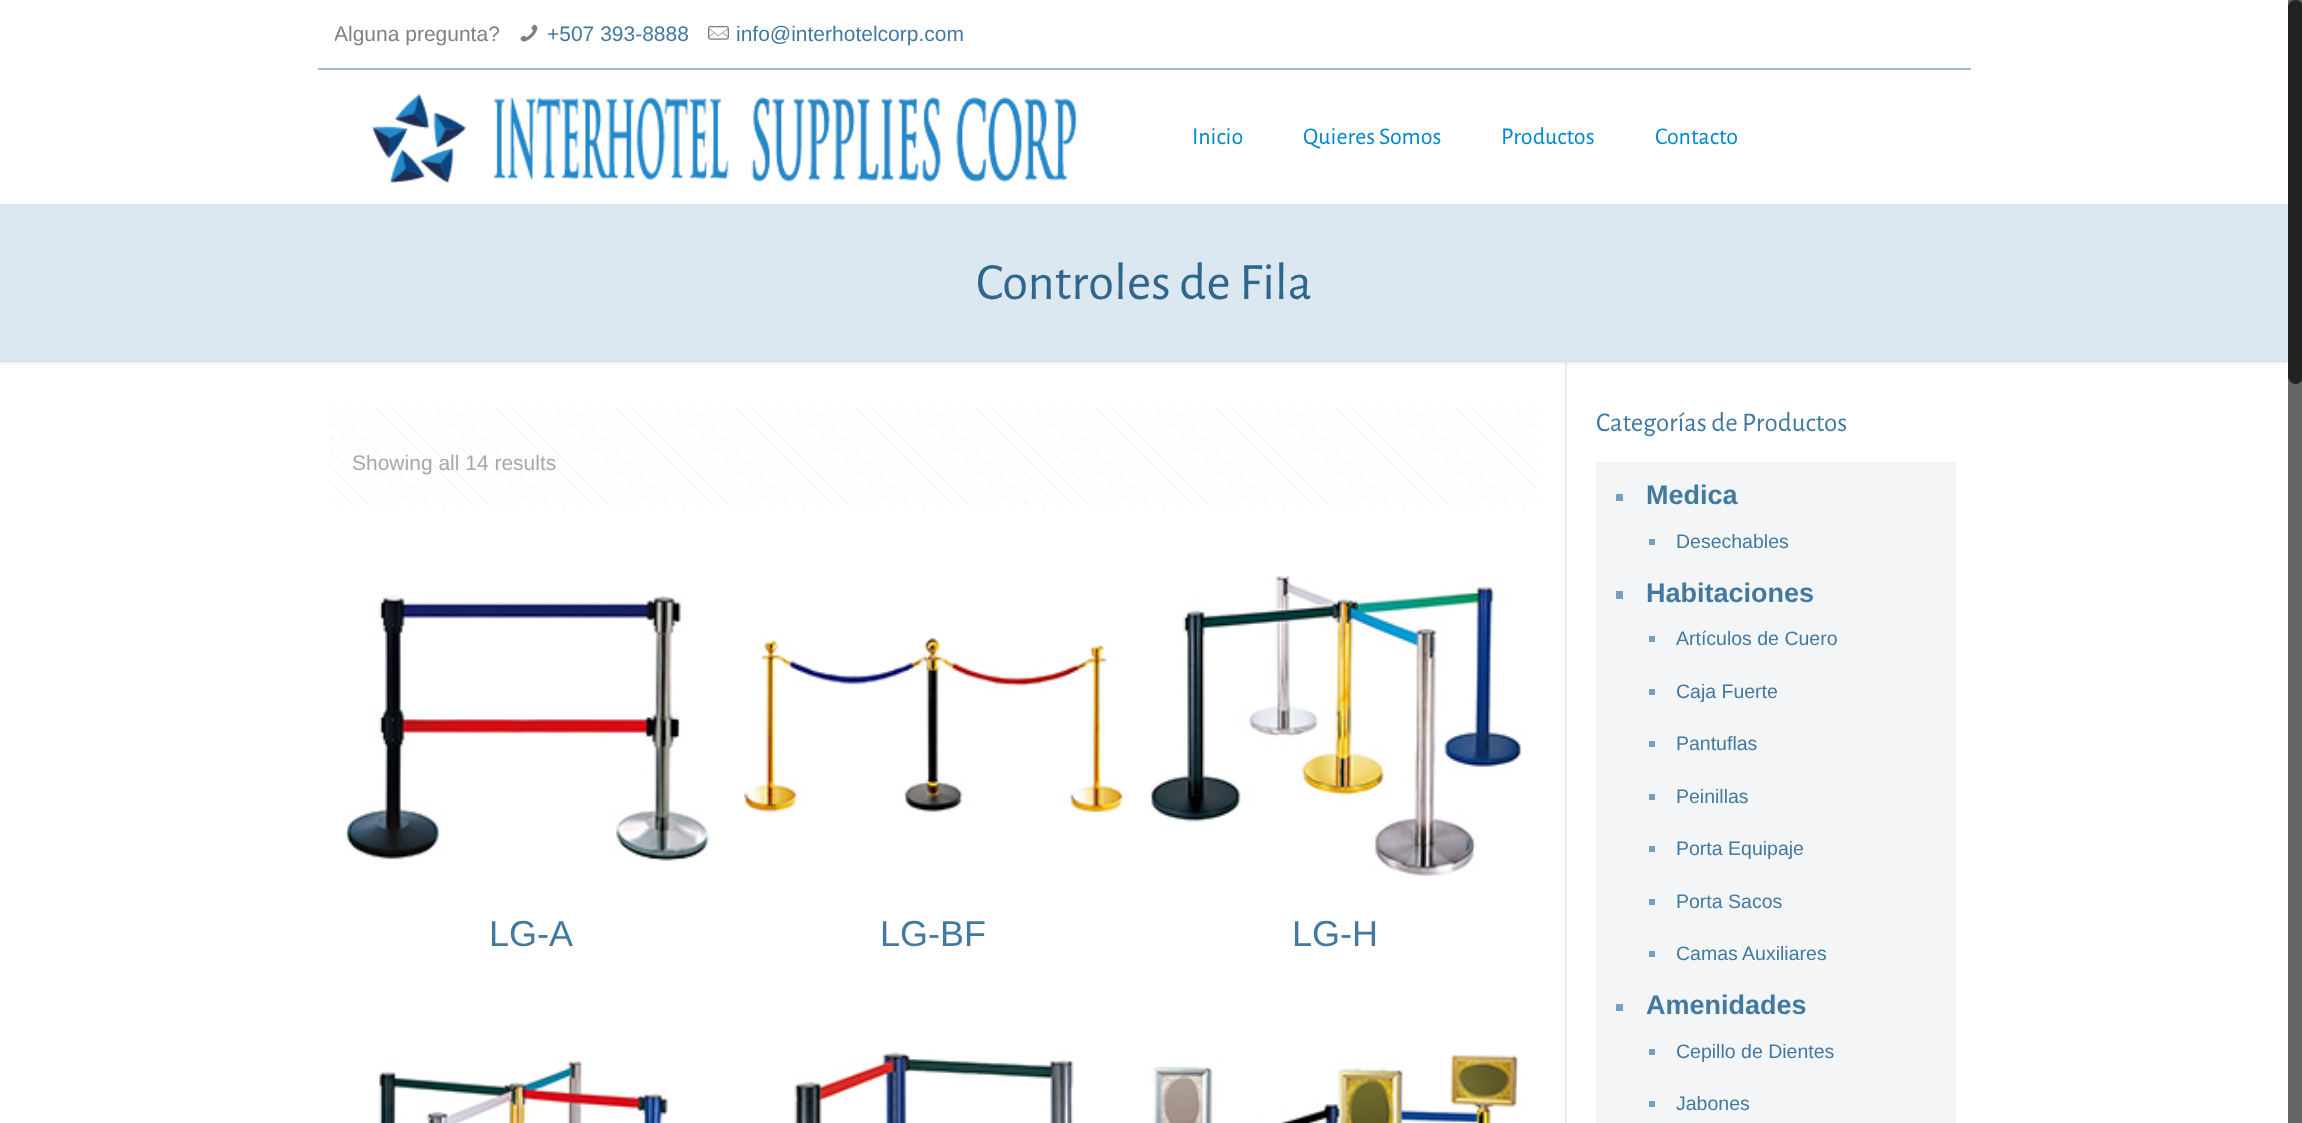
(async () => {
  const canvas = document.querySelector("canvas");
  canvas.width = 2302;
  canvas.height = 1123;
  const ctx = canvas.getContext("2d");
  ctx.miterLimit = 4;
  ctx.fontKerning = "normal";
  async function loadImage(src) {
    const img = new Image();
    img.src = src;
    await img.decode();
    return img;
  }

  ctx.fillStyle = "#ffffff";
  ctx.fillRect(0, 0, 2302, 1123);
  ctx.fillStyle = "#9fbccf";
  ctx.fillRect(318, 68, 1653, 2);
  ctx.drawImage(await loadImage("img/1.png"), 520, 24, 18, 18);
  ctx.drawImage(await loadImage("img/2.png"), 708, 25, 21, 15);
  ctx.drawImage(await loadImage("img/3.png"), 371, 94, 705, 89);
  ctx.fillStyle = "#dbe8f1";
  ctx.fillRect(0, 204, 2288, 158);
  ctx.fillStyle = "#ebebeb";
  ctx.fillRect(1565, 362, 2, 761);
  ctx.drawImage(await loadImage("img/4.png"), 0, 361, 2287, 4);
  ctx.drawImage(await loadImage("img/5.png"), 330, 407, 1207, 100);
  ctx.drawImage(await loadImage("img/6.png"), 345, 595, 365, 266);
  ctx.drawImage(await loadImage("img/7.png"), 744, 638, 378, 177);
  ctx.drawImage(await loadImage("img/8.png"), 1149, 576, 374, 300);
  ctx.drawImage(await loadImage("img/9.png"), 379, 1061, 289, 62);
  ctx.drawImage(await loadImage("img/10.png"), 794, 1051, 280, 72);
  ctx.drawImage(await loadImage("img/11.png"), 1149, 1053, 373, 70);
  for (const [x, y, w, h, color] of [
    [1596, 462, 360, 661, "#f3f5f7"],
    [1616, 494, 7, 7, "#76a0be"],
    [1649, 539, 6, 6, "#76a0be"],
    [1616, 591, 7, 8, "#76a0be"],
    [1649, 636, 6, 6, "#76a0be"],
    [1649, 689, 6, 6, "#76a0be"],
    [1649, 741, 6, 6, "#76a0be"],
    [1649, 794, 6, 6, "#76a0be"],
    [1649, 846, 6, 6, "#76a0be"],
    [1649, 899, 6, 6, "#76a0be"],
    [1649, 951, 6, 6, "#76a0be"],
    [1616, 1004, 7, 7, "#76a0be"],
    [1649, 1049, 6, 6, "#76a0be"],
    [1649, 1101, 6, 6, "#76a0be"],
    [2288, 0, 14, 1123, "#666666"],
  ]) {
    ctx.fillStyle = color;
    ctx.fillRect(x, y, w, h);
  }
  ctx.fillStyle = "#222222";
  ctx.beginPath();
  ctx.roundRect(2288, 0, 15, 384, 7.5);
  ctx.fill();
  ctx.save();
  ctx.beginPath();
  ctx.rect(335, 0, 1618, 68);
  ctx.clip();
  ctx.font = "21px Liberation Sans";
  ctx.fillStyle = "#808080";
  ctx.fillText("Alguna pregunta?", 334, 41);
  ctx.restore();
  ctx.font = "21px Liberation Sans";
  ctx.fillStyle = "#4179a0";
  ctx.fillText("+507 393-8888", 547, 41);
  ctx.fillText("info@interhotelcorp.com", 736, 41);
  ctx.font = "24px Alegreya Sans";
  ctx.fillStyle = "#0387cd";
  for (const [text, x, y] of [
    ["Inicio", 1192, 144],
    ["Quieres Somos", 1303, 144],
    ["Productos", 1501, 144],
    ["Contacto", 1655, 144],
  ]) {
    ctx.fillText(text, x, y);
  }
  ctx.font = "52.5px Alegreya Sans";
  ctx.fillStyle = "#31668b";
  ctx.fillText("Controles de Fila", 976, 299);
  ctx.font = "21px Liberation Sans";
  ctx.fillStyle = "#a8a8a8";
  ctx.fillText("Showing all 14 results", 352, 470);
  ctx.font = "36px Liberation Sans";
  ctx.fillStyle = "#4179a0";
  for (const [text, x, y] of [
    ["LG-A", 489, 946],
    ["LG-BF", 880, 946],
    ["LG-H", 1292, 946],
  ]) {
    ctx.fillText(text, x, y);
  }
  ctx.font = "27px Alegreya Sans";
  ctx.fillText("Categorías de Productos", 1596, 431);
  ctx.font = "bold 27px Liberation Sans";
  ctx.fillText("Medica", 1646, 504);
  ctx.font = "19.5px Liberation Sans";
  ctx.fillText("Desechables", 1676, 548);
  ctx.font = "bold 27px Liberation Sans";
  ctx.fillText("Habitaciones", 1646, 602);
  ctx.font = "19.5px Liberation Sans";
  for (const [text, x, y] of [
    ["Artículos de Cuero", 1676, 645],
    ["Caja Fuerte", 1676, 698],
    ["Pantuflas", 1676, 750],
    ["Peinillas", 1676, 803],
    ["Porta Equipaje", 1676, 855],
    ["Porta Sacos", 1676, 908],
    ["Camas Auxiliares", 1676, 960],
  ]) {
    ctx.fillText(text, x, y);
  }
  ctx.font = "bold 27px Liberation Sans";
  ctx.fillText("Amenidades", 1646, 1014);
  ctx.font = "19.5px Liberation Sans";
  ctx.fillText("Cepillo de Dientes", 1676, 1058);
  ctx.fillText("Jabones", 1676, 1110);
})();
